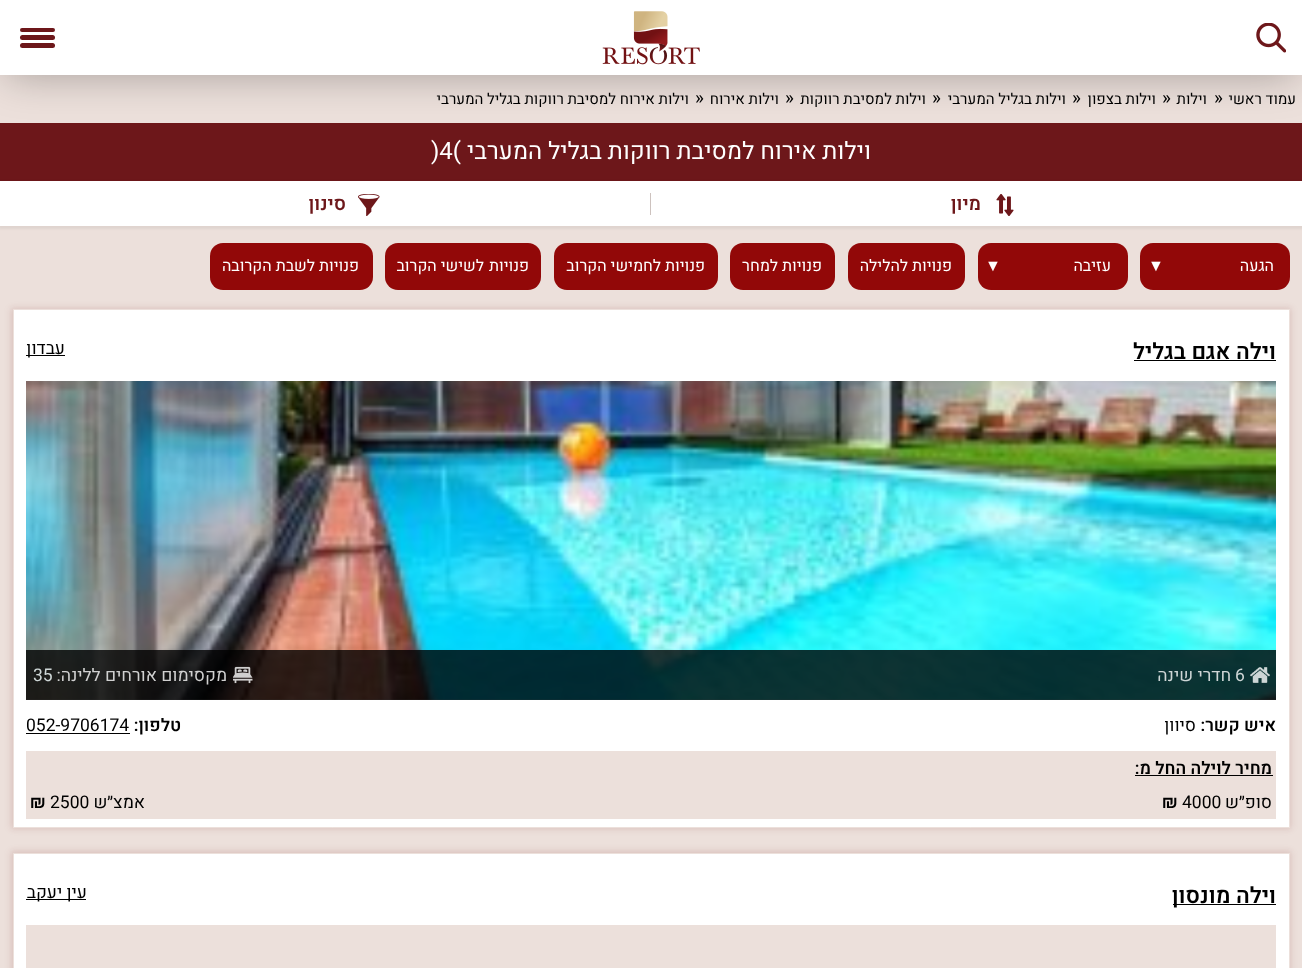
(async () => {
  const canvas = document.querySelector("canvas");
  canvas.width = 1302;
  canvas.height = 968;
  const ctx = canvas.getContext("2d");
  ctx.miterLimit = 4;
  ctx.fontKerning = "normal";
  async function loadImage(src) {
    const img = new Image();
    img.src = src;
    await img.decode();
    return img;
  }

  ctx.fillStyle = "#ece0db";
  ctx.fillRect(0, 0, 1302, 968);
  ctx.fillStyle = "#6d171a";
  ctx.fillRect(0, 123, 1302, 58);
  ctx.fillStyle = "rgba(0, 0, 0, 0.3)";
  ctx.filter = "blur(20.5px)";
  ctx.beginPath();
  ctx.rect(6, 13, 1290, 62);
  ctx.fill();
  ctx.filter = "none";
  ctx.fillStyle = "#ffffff";
  ctx.fillRect(0, 0, 1302, 75);
  ctx.drawImage(await loadImage("img/1.png"), 1256, 23, 30, 30);
  ctx.drawImage(await loadImage("img/2.png"), 602, 11, 98, 54);
  ctx.fillStyle = "#6d171a";
  ctx.beginPath();
  ctx.roundRect(20, 28, 35, 4, 2);
  ctx.fill();
  ctx.beginPath();
  ctx.roundRect(20, 35, 35, 5, 2.5);
  ctx.fill();
  ctx.beginPath();
  ctx.roundRect(20, 43, 35, 5, 2.5);
  ctx.fill();
  ctx.fillStyle = "rgba(0, 0, 0, 0.05)";
  ctx.filter = "blur(1px)";
  ctx.beginPath();
  ctx.rect(-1, 181, 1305, 48);
  ctx.fill();
  ctx.filter = "none";
  ctx.fillStyle = "#ffffff";
  ctx.fillRect(0, 181, 1302, 45);
  ctx.drawImage(await loadImage("img/3.png"), 996, 194, 18, 22);
  ctx.fillStyle = "#cdc2be";
  ctx.fillRect(650, 193, 1, 22);
  ctx.drawImage(await loadImage("img/4.png"), 358, 194, 22, 22);
  ctx.fillStyle = "#920808";
  ctx.beginPath();
  ctx.roundRect(1140, 243, 150, 47, 13);
  ctx.fill();
  ctx.beginPath();
  ctx.roundRect(978, 243, 150, 47, 13);
  ctx.fill();
  ctx.beginPath();
  ctx.roundRect(848, 243, 117, 47, 13);
  ctx.fill();
  ctx.beginPath();
  ctx.roundRect(730, 243, 105, 47, 13);
  ctx.fill();
  ctx.beginPath();
  ctx.roundRect(554, 243, 164, 47, 13);
  ctx.fill();
  ctx.beginPath();
  ctx.roundRect(385, 243, 156, 47, 13);
  ctx.fill();
  ctx.beginPath();
  ctx.roundRect(210, 243, 163, 47, 13);
  ctx.fill();
  ctx.fillStyle = "rgba(118, 18, 18, 0.15)";
  ctx.filter = "blur(3px)";
  ctx.beginPath();
  ctx.rect(11, 308, 1280, 521);
  ctx.fill();
  ctx.filter = "none";
  ctx.fillStyle = "#ffffff";
  ctx.beginPath();
  ctx.rect(13.5, 309.5, 1276, 518);
  ctx.fill();
  ctx.strokeStyle = "#ece0db";
  ctx.stroke();
  ctx.fillStyle = "#000000";
  ctx.fillRect(1134, 360, 142, 1);
  ctx.fillRect(26, 355, 39, 1);
  ctx.drawImage(await loadImage("img/5.png"), 26, 381, 1250, 319);
  ctx.fillStyle = "rgba(0, 0, 0, 0.8)";
  ctx.fillRect(26, 650, 1250, 50);
  ctx.drawImage(await loadImage("img/6.png"), 1250, 667, 20, 16);
  ctx.drawImage(await loadImage("img/7.png"), 233, 666, 20, 18);
  for (const [x, y, w, h, color] of [
    [26, 733, 104, 1, "#000000"],
    [26, 751, 1250, 68, "#ece0db"],
    [1135, 775, 138, 1, "#000000"],
  ]) {
    ctx.fillStyle = color;
    ctx.fillRect(x, y, w, h);
  }
  ctx.fillStyle = "rgba(118, 18, 18, 0.15)";
  ctx.filter = "blur(3px)";
  ctx.beginPath();
  ctx.rect(11, 851, 1280, 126);
  ctx.fill();
  ctx.filter = "none";
  ctx.fillStyle = "#ffffff";
  ctx.beginPath();
  ctx.rect(13.5, 853.5, 1276, 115);
  ctx.fill();
  ctx.stroke();
  for (const [x, y, w, h, color] of [
    [1173, 904, 103, 1, "#000000"],
    [26, 899, 60, 1, "#000000"],
    [26, 925, 1250, 43, "#ece0db"],
  ]) {
    ctx.fillStyle = color;
    ctx.fillRect(x, y, w, h);
  }
  ctx.direction = "rtl";
  ctx.font = "15px Heebo";
  ctx.fillStyle = "#000000";
  ctx.fillText("עמוד ראשי", 1296, 104);
  ctx.direction = "ltr";
  ctx.font = "19px Heebo";
  ctx.fillText("»", 1214, 104);
  ctx.direction = "rtl";
  ctx.font = "15px Heebo";
  ctx.fillText("וילות", 1207, 104);
  ctx.direction = "ltr";
  ctx.font = "19px Heebo";
  ctx.fillText("»", 1162, 104);
  ctx.direction = "rtl";
  ctx.font = "15px Heebo";
  ctx.fillText("וילות בצפון", 1156, 104);
  ctx.direction = "ltr";
  ctx.font = "19px Heebo";
  ctx.fillText("»", 1072, 104);
  ctx.direction = "rtl";
  ctx.font = "15px Heebo";
  ctx.fillText("וילות בגליל המערבי", 1066, 104);
  ctx.direction = "ltr";
  ctx.font = "19px Heebo";
  ctx.fillText("»", 932, 104);
  ctx.direction = "rtl";
  ctx.font = "15px Heebo";
  ctx.fillText("וילות למסיבת רווקות", 926, 104);
  ctx.direction = "ltr";
  ctx.font = "19px Heebo";
  ctx.fillText("»", 785, 104);
  ctx.direction = "rtl";
  ctx.font = "15px Heebo";
  ctx.fillText("וילות אירוח", 779, 104);
  ctx.direction = "ltr";
  ctx.font = "19px Heebo";
  ctx.fillText("»", 695, 104);
  ctx.direction = "rtl";
  ctx.font = "15px Heebo";
  ctx.fillText("וילות אירוח למסיבת רווקות בגליל המערבי", 689, 104);
  ctx.font = "24px Heebo";
  ctx.fillStyle = "#ffffff";
  ctx.fillText("וילות אירוח למסיבת רווקות בגליל המערבי", 871, 159);
  ctx.direction = "ltr";
  ctx.fillText(")4(", 431, 159);
  ctx.direction = "rtl";
  ctx.font = "600 19px Heebo";
  ctx.fillStyle = "#6d171a";
  ctx.fillText("מיון", 981, 210);
  ctx.fillText("סינון", 346, 210);
  ctx.font = "16px Heebo";
  ctx.fillStyle = "#ffffff";
  ctx.fillText("הגעה", 1274, 271);
  ctx.direction = "ltr";
  ctx.font = "16px Liberation Sans";
  ctx.fillText("▼", 1148, 271);
  ctx.direction = "rtl";
  ctx.font = "16px Heebo";
  ctx.fillText("עזיבה", 1111, 271);
  ctx.direction = "ltr";
  ctx.font = "16px Liberation Sans";
  ctx.fillText("▼", 985, 271);
  ctx.direction = "rtl";
  ctx.font = "16px Heebo";
  for (const [text, x, y] of [
    ["פנויות", 952, 271],
    ["להלילה", 908, 271],
    ["פנויות", 822, 271],
    ["למחר", 778, 271],
    ["פנויות", 705, 271],
    ["לחמישי הקרוב", 661, 271],
    ["פנויות", 529, 271],
    ["לשישי הקרוב", 484, 271],
    ["פנויות", 359, 271],
    ["לשבת הקרובה", 315, 271],
  ]) {
    ctx.fillText(text, x, y);
  }
  ctx.font = "600 22.5px Heebo";
  ctx.fillStyle = "#000000";
  ctx.fillText("וילה אגם בגליל", 1276, 359);
  ctx.font = "17.5px Heebo";
  ctx.fillText("עבדון", 65, 354);
  ctx.direction = "ltr";
  ctx.fillStyle = "#ced6d6";
  ctx.fillText("6", 1235, 681);
  ctx.direction = "rtl";
  ctx.fillText("חדרי שינה", 1231, 681);
  ctx.fillStyle = "#d0d0d0";
  ctx.fillText("מקסימום אורחים ללינה:", 227, 681);
  ctx.direction = "ltr";
  ctx.fillStyle = "#ced6d6";
  ctx.fillText("35", 33, 681);
  ctx.direction = "rtl";
  ctx.font = "600 17.5px Heebo";
  ctx.fillStyle = "#000000";
  ctx.fillText("איש קשר:", 1276, 731);
  ctx.font = "17.5px Heebo";
  ctx.fillText("סיוון", 1196, 731);
  ctx.font = "600 17.5px Heebo";
  ctx.fillText("טלפון:", 181, 731);
  ctx.direction = "ltr";
  ctx.font = "17.5px Heebo";
  ctx.fillText("052-9706174", 26, 731);
  ctx.direction = "rtl";
  ctx.font = "600 17.5px Heebo";
  ctx.fillText("מחיר לוילה החל מ:", 1272, 774);
  ctx.font = "17.5px Heebo";
  ctx.fillText("סופ״ש", 1272, 808);
  ctx.direction = "ltr";
  ctx.fillText("4000", 1182, 808);
  ctx.font = "600 17.5px Heebo";
  ctx.fillText("₪", 1162, 808);
  ctx.direction = "rtl";
  ctx.font = "17.5px Heebo";
  ctx.fillText("אמצ״ש", 145, 808);
  ctx.direction = "ltr";
  ctx.fillText("2500", 50, 808);
  ctx.font = "600 17.5px Heebo";
  ctx.fillText("₪", 30, 808);
  ctx.direction = "rtl";
  ctx.font = "600 22.5px Heebo";
  ctx.fillText("וילה מונסון", 1276, 903);
  ctx.font = "17.5px Heebo";
  ctx.fillText("עין יעקב", 87, 898);
})();
